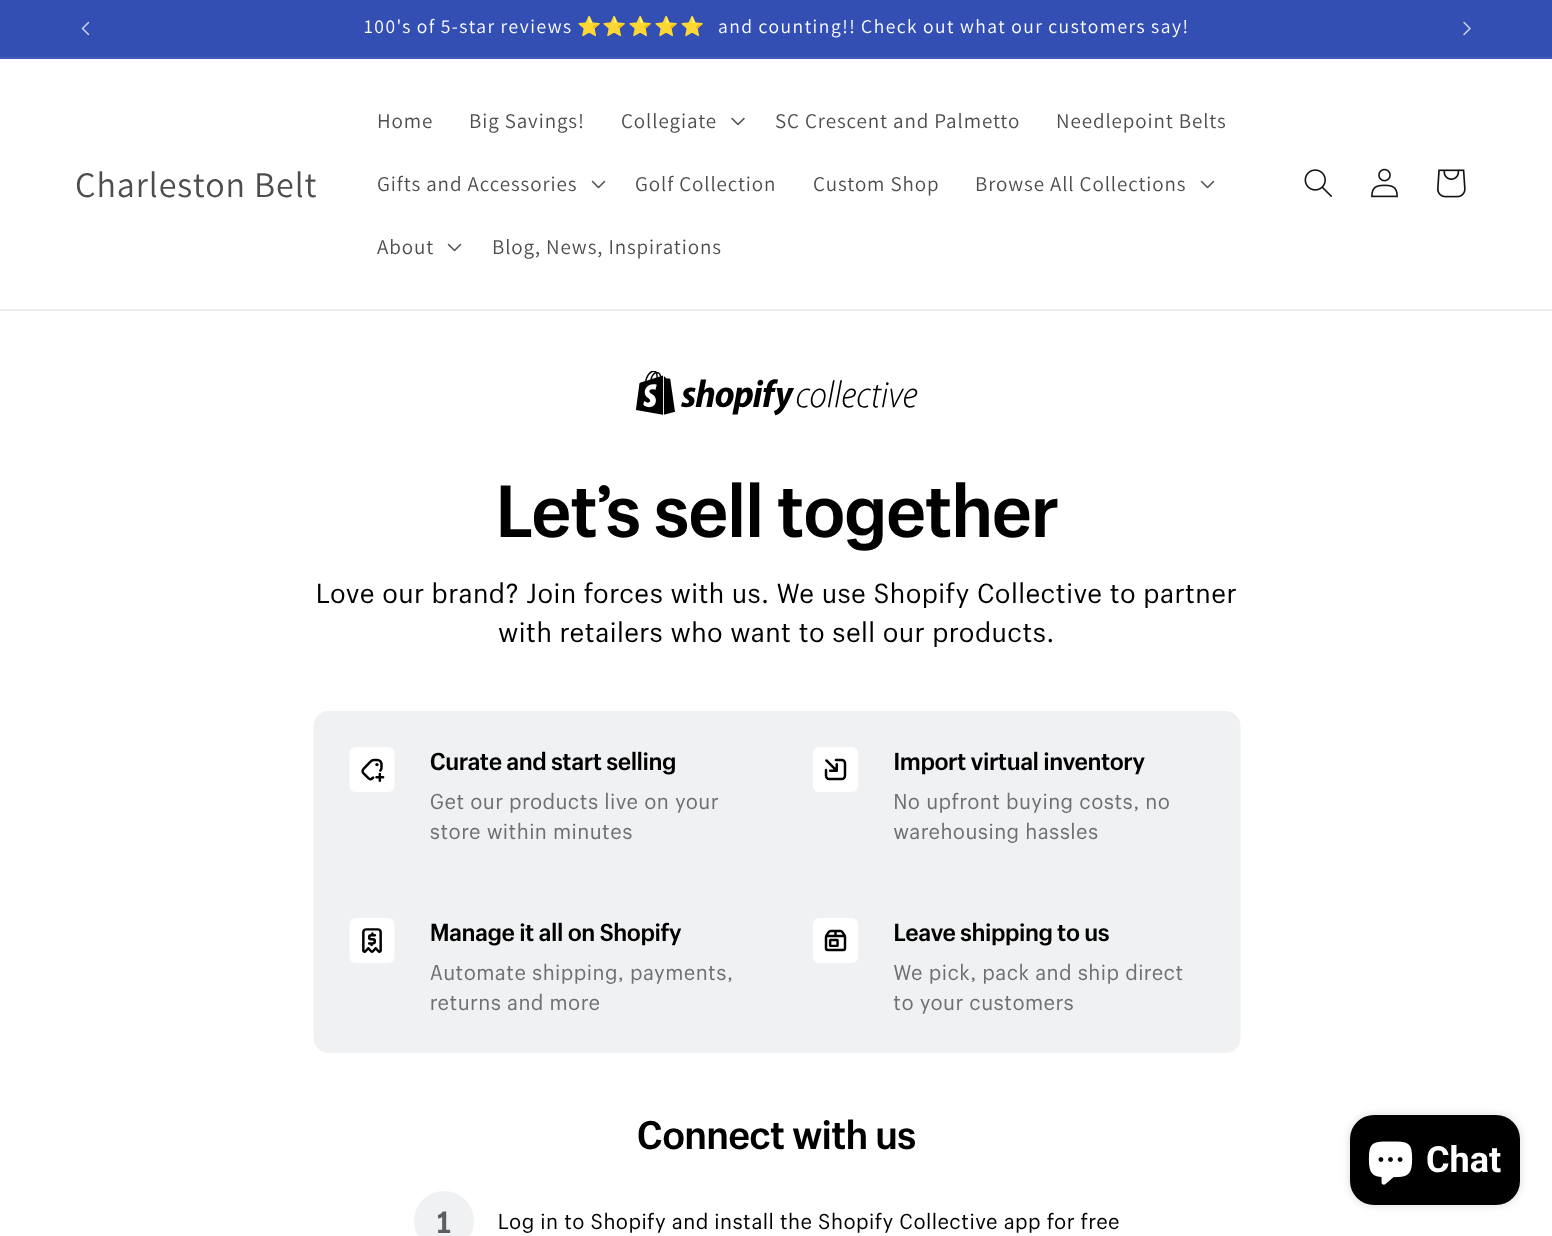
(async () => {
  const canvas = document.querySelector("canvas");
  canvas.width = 1552;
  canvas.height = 1236;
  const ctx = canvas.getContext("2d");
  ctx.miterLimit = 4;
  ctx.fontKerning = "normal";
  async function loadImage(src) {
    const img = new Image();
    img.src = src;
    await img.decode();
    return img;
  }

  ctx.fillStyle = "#ffffff";
  ctx.fillRect(0, 0, 1552, 1236);
  ctx.fillStyle = "#334fb4";
  ctx.fillRect(0, 0, 1552, 57);
  ctx.fillStyle = "#435dba";
  ctx.fillRect(0, 57, 1552, 2);
  ctx.drawImage(await loadImage("img/1.png"), 81, 21, 9, 15);
  ctx.drawImage(await loadImage("img/2.png"), 1463, 21, 8, 15);
  ctx.fillStyle = "#ececec";
  ctx.fillRect(0, 309, 1552, 2);
  ctx.drawImage(await loadImage("img/3.png"), 731, 117, 14, 9);
  ctx.drawImage(await loadImage("img/4.png"), 591, 180, 15, 9);
  ctx.drawImage(await loadImage("img/4.png"), 1200, 180, 15, 9);
  ctx.drawImage(await loadImage("img/4.png"), 447, 243, 15, 9);
  ctx.drawImage(await loadImage("img/5.png"), 1304, 169, 28, 28);
  ctx.drawImage(await loadImage("img/6.png"), 1371, 168, 27, 30);
  ctx.drawImage(await loadImage("img/7.png"), 1437, 169, 29, 29);
  ctx.drawImage(await loadImage("img/8.png"), 313, 371, 928, 865);
  ctx.fillStyle = "rgba(0, 0, 0, 0.15)";
  ctx.filter = "blur(4px)";
  ctx.beginPath();
  ctx.roundRect(1350, 1115, 170, 90, 24);
  ctx.fill();
  ctx.filter = "none";
  ctx.fillStyle = "#000000";
  ctx.beginPath();
  ctx.roundRect(1350, 1115, 170, 90, 24);
  ctx.fill();
  ctx.drawImage(await loadImage("img/9.png"), 1368, 1141, 45, 44);
  ctx.letterSpacing = "1.5px";
  ctx.wordSpacing = "-0.5px";
  ctx.font = "19.5px Assistant";
  ctx.fillStyle = "#ffffff";
  ctx.fillText("100's of 5-star reviews", 364, 33);
  ctx.wordSpacing = "0px";
  ctx.font = "19.5px Noto Color Emoji";
  ctx.fillText("⭐️⭐️⭐️⭐️⭐️", 577, 33);
  ctx.wordSpacing = "-0.5px";
  ctx.font = "19.5px Assistant";
  ctx.fillText("and counting!! Check out what our customers say!", 718, 33);
  ctx.letterSpacing = "0.9px";
  ctx.wordSpacing = "0px";
  ctx.font = "36px Assistant";
  ctx.fillStyle = "#4d4d4d";
  ctx.fillText("Charleston Belt", 75, 197);
  ctx.font = "21px Assistant";
  for (const [text, x, y] of [
    ["Home", 377, 128],
    ["Big Savings!", 469, 128],
    ["Collegiate", 621, 128],
    ["SC Crescent and Palmetto", 775, 128],
    ["Needlepoint Belts", 1056, 128],
    ["Gifts and Accessories", 377, 191],
    ["Golf Collection", 635, 191],
    ["Custom Shop", 813, 191],
    ["Browse All Collections", 975, 191],
    ["About", 377, 254],
    ["Blog, News, Inspirations", 492, 254],
  ]) {
    ctx.fillText(text, x, y);
  }
  ctx.letterSpacing = "0px";
  ctx.font = "bold 36px Roboto";
  ctx.fillStyle = "#ffffff";
  ctx.fillText("Chat", 1426, 1172);
})();
